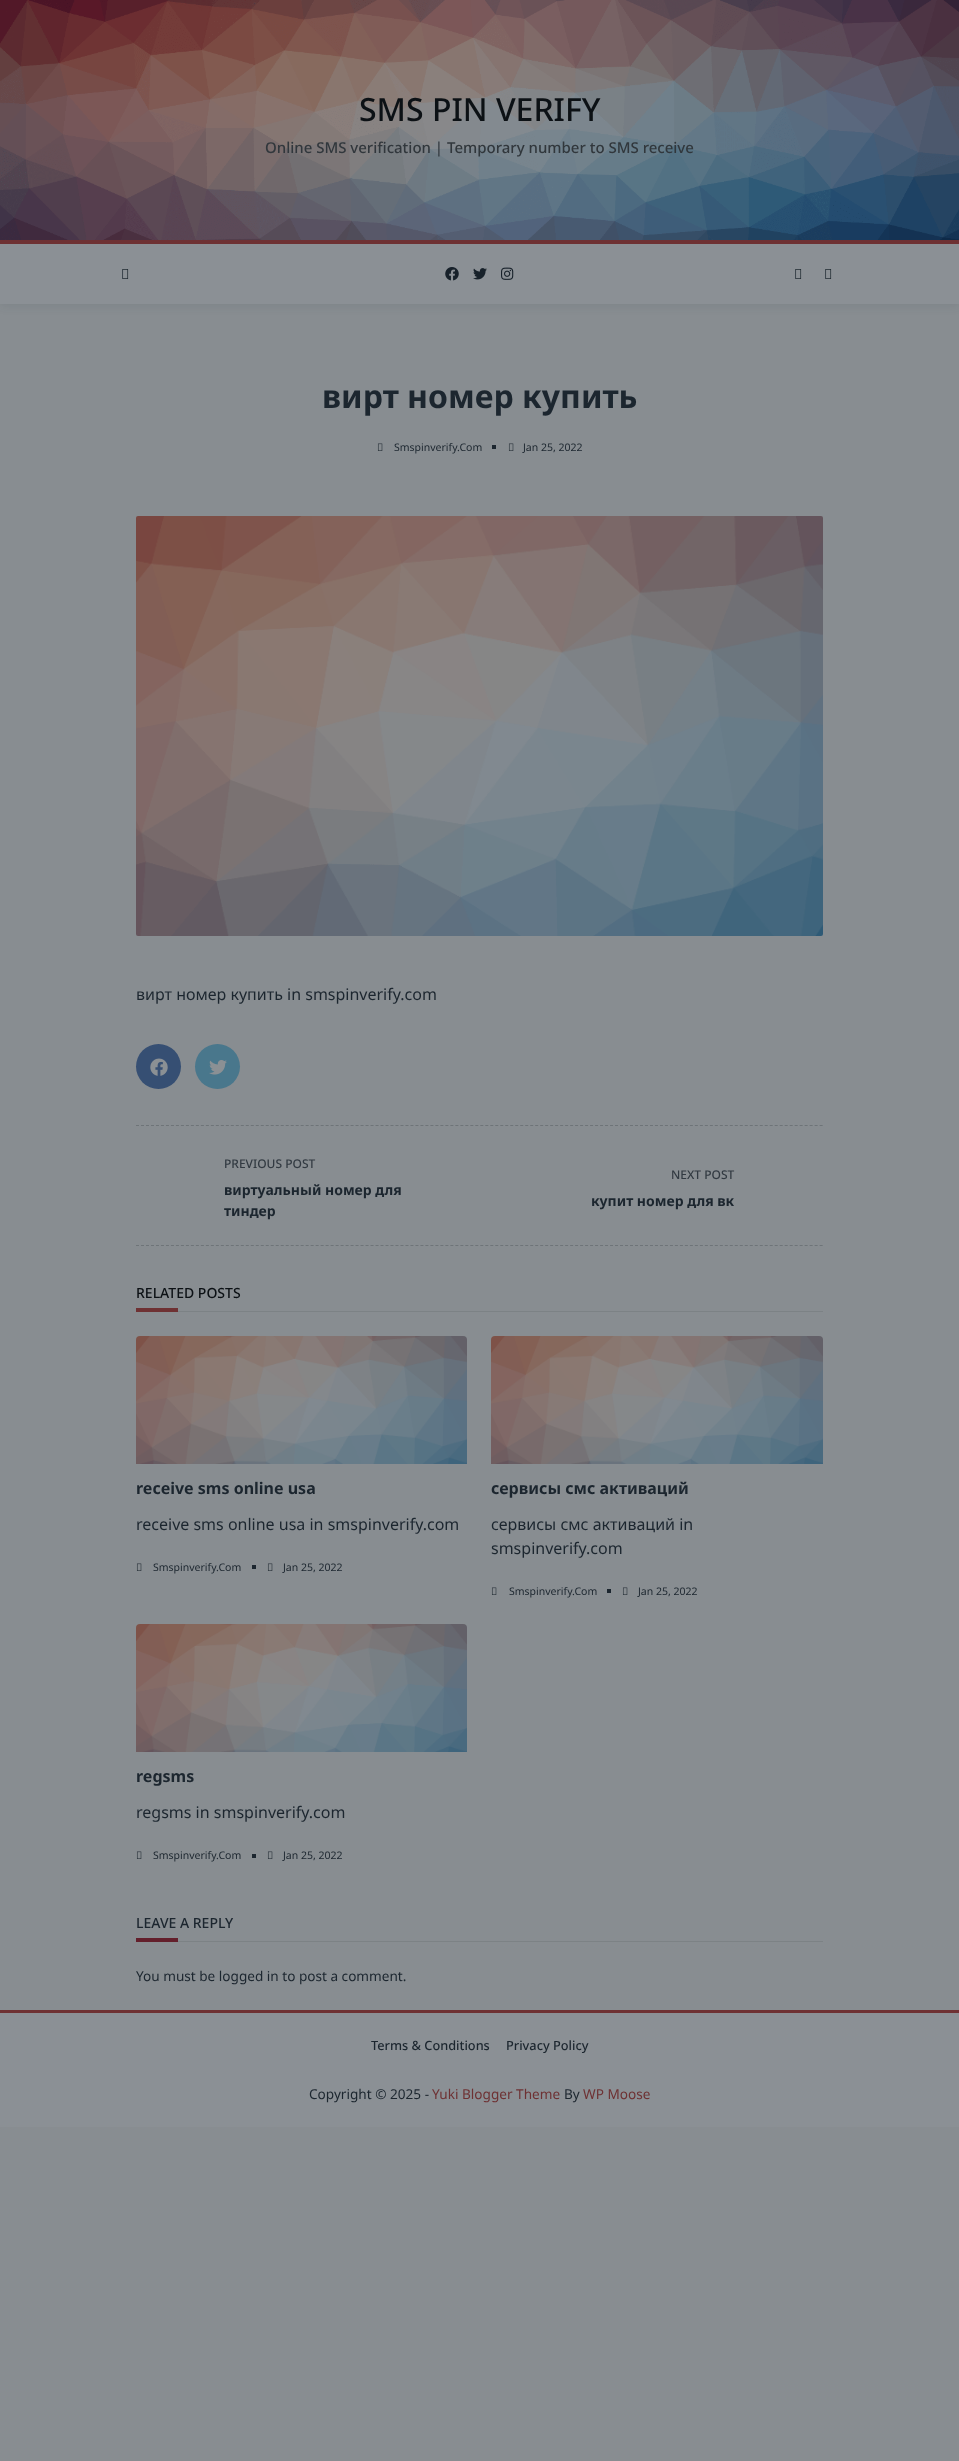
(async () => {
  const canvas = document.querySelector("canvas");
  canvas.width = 959;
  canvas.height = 2461;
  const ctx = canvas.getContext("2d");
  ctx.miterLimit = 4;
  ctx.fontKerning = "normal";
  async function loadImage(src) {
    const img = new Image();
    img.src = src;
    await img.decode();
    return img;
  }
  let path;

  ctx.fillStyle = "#888d91";
  ctx.fillRect(0, 0, 959, 2461);
  ctx.fillStyle = "rgba(34, 48, 61, 0.1)";
  ctx.filter = "blur(5px)";
  ctx.beginPath();
  ctx.rect(0, 242, 959, 64);
  ctx.fill();
  ctx.filter = "none";
  ctx.drawImage(await loadImage("img/1.png"), 0, 0, 959, 240);
  ctx.fillStyle = "#8b9095";
  ctx.fillRect(0, 244, 959, 60);
  ctx.fillStyle = "#6e3133";
  ctx.fillRect(0, 240, 959, 4);
  ctx.drawImage(await loadImage("img/2.png"), 122, 269, 7, 10);
  ctx.drawImage(await loadImage("img/3.png"), 445, 267, 14, 14);
  ctx.drawImage(await loadImage("img/4.png"), 473, 268, 14, 12);
  ctx.drawImage(await loadImage("img/5.png"), 501, 267, 13, 13);
  ctx.drawImage(await loadImage("img/2.png"), 795, 269, 7, 10);
  ctx.drawImage(await loadImage("img/2.png"), 825, 269, 7, 10);
  ctx.drawImage(await loadImage("img/6.png"), 377, 443, 6, 8);
  ctx.fillStyle = "#1c262f";
  ctx.fillRect(492, 445, 4, 4);
  ctx.drawImage(await loadImage("img/6.png"), 508, 443, 6, 8);
  ctx.drawImage(await loadImage("img/7.png"), 136, 516, 687, 420);
  ctx.fillStyle = "#364f73";
  ctx.beginPath();
  ctx.arc(158.5, 1066.5, 22.5, 0, Math.PI * 2);
  ctx.fill();
  ctx.drawImage(await loadImage("img/8.png"), 150, 1058, 18, 18);
  ctx.fillStyle = "#49778c";
  ctx.beginPath();
  ctx.arc(217.5, 1066.5, 22.5, 0, Math.PI * 2);
  ctx.fill();
  ctx.drawImage(await loadImage("img/9.png"), 209, 1060, 18, 15);
  path = new Path2D("M136 1125.5H823");
  ctx.strokeStyle = "#6e7478";
  ctx.setLineDash([3, 1.99]);
  ctx.stroke(path);
  path = new Path2D("M136 1245.5H823");
  ctx.stroke(path);
  ctx.fillStyle = "#7c8285";
  ctx.fillRect(178, 1311, 645, 1);
  ctx.fillStyle = "#6e3133";
  ctx.fillRect(136, 1308, 42, 4);
  ctx.drawImage(await loadImage("img/10.png"), 136, 1336, 331, 128);
  ctx.drawImage(await loadImage("img/6.png"), 136, 1563, 6, 8);
  ctx.fillStyle = "#1c262f";
  ctx.fillRect(252, 1565, 4, 4);
  ctx.drawImage(await loadImage("img/6.png"), 267, 1563, 6, 8);
  ctx.drawImage(await loadImage("img/11.png"), 491, 1336, 332, 128);
  ctx.drawImage(await loadImage("img/6.png"), 491, 1587, 6, 8);
  ctx.fillRect(607, 1589, 4, 4);
  ctx.drawImage(await loadImage("img/6.png"), 622, 1587, 6, 8);
  ctx.drawImage(await loadImage("img/12.png"), 136, 1624, 331, 128);
  ctx.drawImage(await loadImage("img/6.png"), 136, 1851, 6, 8);
  ctx.fillRect(252, 1854, 4, 4);
  ctx.drawImage(await loadImage("img/6.png"), 267, 1851, 6, 8);
  for (const [x, y, w, h, color] of [
    [178, 1941, 645, 1, "#7c8285"],
    [136, 1938, 42, 4, "#631f2b"],
    [0, 2013, 959, 114, "#8b9095"],
    [0, 2010, 959, 3, "#6e3133"],
  ]) {
    ctx.fillStyle = color;
    ctx.fillRect(x, y, w, h);
  }
  ctx.font = "500 32px Noto Sans";
  ctx.fillStyle = "#0c1115";
  ctx.fillText("SMS PIN VERIFY", 359, 121);
  ctx.font = "500 15px Noto Sans";
  ctx.fillStyle = "#31373c";
  ctx.fillText("Online SMS verification | Temporary number to SMS receive", 265, 153);
  ctx.font = "bold 32px Noto Sans";
  ctx.fillStyle = "#1c262f";
  ctx.fillText("вирт номер купить", 322, 408);
  ctx.font = "10.5px Noto Sans";
  ctx.fillText("Smspinverify.Com", 394, 451);
  ctx.fillText("Jan 25, 2022", 523, 451);
  ctx.font = "16px Noto Sans";
  ctx.fillText("вирт номер купить in smspinverify.com", 136, 1000);
  ctx.font = "500 12px Noto Sans";
  ctx.fillStyle = "#323a42";
  ctx.fillText("PREVIOUS POST", 224, 1168);
  ctx.font = "bold 14px Noto Sans";
  ctx.fillStyle = "#1c262f";
  ctx.fillText("виртуальный номер для", 224, 1195);
  ctx.fillText("тиндер", 224, 1216);
  ctx.font = "500 12px Noto Sans";
  ctx.fillStyle = "#323a42";
  ctx.fillText("NEXT POST", 671, 1179);
  ctx.font = "bold 14px Noto Sans";
  ctx.fillStyle = "#1c262f";
  ctx.fillText("купит номер для вк", 591, 1206);
  ctx.font = "500 14px Noto Sans";
  ctx.fillStyle = "#0c1115";
  ctx.fillText("RELATED POSTS", 136, 1298);
  ctx.font = "bold 16px Noto Sans";
  ctx.fillStyle = "#1c262f";
  ctx.fillText("receive sms online usa", 136, 1494);
  ctx.font = "16px Noto Sans";
  ctx.fillText("receive sms online usa in smspinverify.com", 136, 1530);
  ctx.font = "10.5px Noto Sans";
  ctx.fillText("Smspinverify.Com", 153, 1571);
  ctx.fillText("Jan 25, 2022", 283, 1571);
  ctx.font = "bold 16px Noto Sans";
  ctx.fillText("сервисы смс активаций", 491, 1494);
  ctx.font = "16px Noto Sans";
  ctx.fillText("сервисы смс активаций in", 491, 1530);
  ctx.fillText("smspinverify.com", 491, 1554);
  ctx.font = "10.5px Noto Sans";
  ctx.fillText("Smspinverify.Com", 509, 1595);
  ctx.fillText("Jan 25, 2022", 638, 1595);
  ctx.font = "bold 16px Noto Sans";
  ctx.fillText("regsms", 136, 1782);
  ctx.font = "16px Noto Sans";
  ctx.fillText("regsms in smspinverify.com", 136, 1818);
  ctx.font = "10.5px Noto Sans";
  ctx.fillText("Smspinverify.Com", 153, 1859);
  ctx.fillText("Jan 25, 2022", 283, 1859);
  ctx.font = "500 14px Noto Sans";
  ctx.fillText("LEAVE A REPLY", 136, 1928);
  ctx.font = "13.6px Noto Sans";
  ctx.fillText("You must be logged in to post a comment.", 136, 1981);
  ctx.font = "500 12.75px Noto Sans";
  ctx.fillText("Terms & Conditions", 371, 2050);
  ctx.fillText("Privacy Policy", 506, 2050);
  ctx.font = "13.6px Noto Sans";
  ctx.fillText("Copyright © 2025 -", 309, 2099);
  ctx.fillStyle = "#6e3133";
  ctx.fillText("Yuki Blogger Theme", 432, 2099);
  ctx.fillStyle = "#1c262f";
  ctx.fillText("By", 564, 2099);
  ctx.fillStyle = "#6e3133";
  ctx.fillText("WP Moose", 583, 2099);
})();
